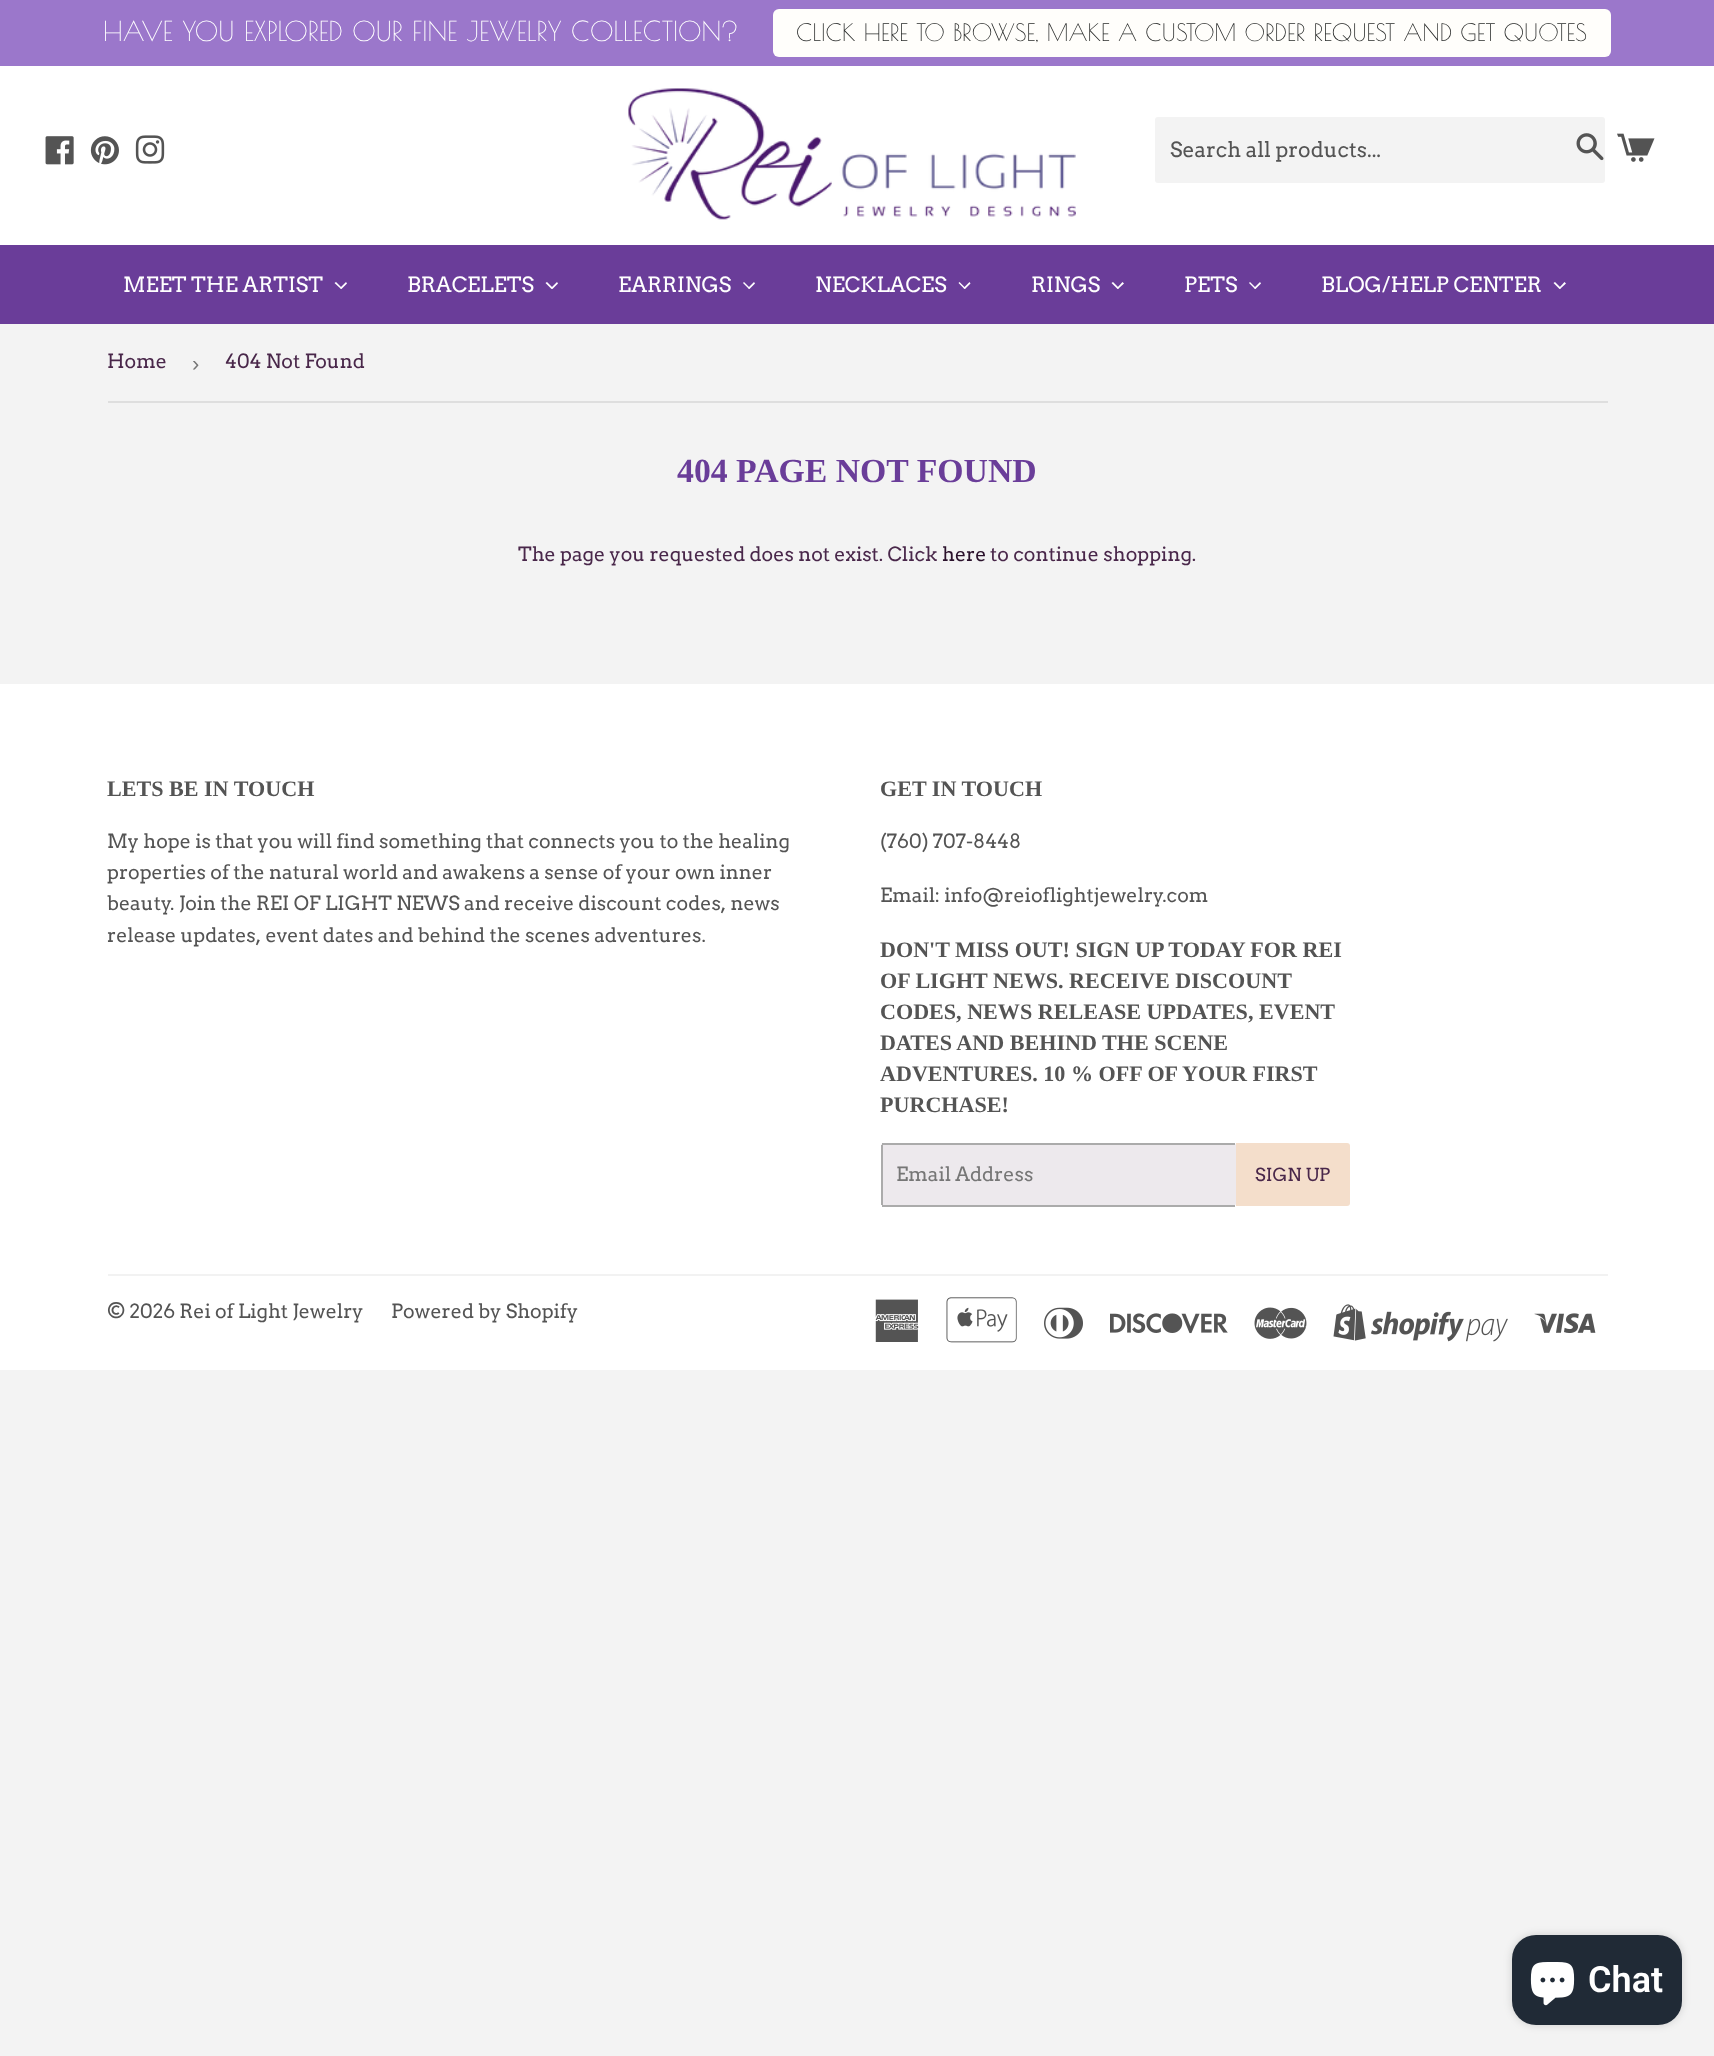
(async () => {
  const canvas = document.querySelector("canvas");
  canvas.width = 1714;
  canvas.height = 2056;
  const ctx = canvas.getContext("2d");
  ctx.miterLimit = 4;
  ctx.fontKerning = "normal";
  async function loadImage(src) {
    const img = new Image();
    img.src = src;
    await img.decode();
    return img;
  }
  let path;

  ctx.fillStyle = "#f3f3f3";
  ctx.fillRect(0, 0, 1714, 2056);
  ctx.fillStyle = "#9b77cb";
  ctx.fillRect(0, 0, 1714, 66);
  ctx.fillStyle = "#fffefb";
  ctx.beginPath();
  ctx.roundRect(773, 9, 838, 48, 6);
  ctx.fill();
  ctx.fillStyle = "#ffffff";
  ctx.fillRect(0, 66, 1714, 179);
  ctx.drawImage(await loadImage("img/1.png"), 45, 136, 29, 29);
  ctx.drawImage(await loadImage("img/2.png"), 90, 136, 29, 29);
  ctx.drawImage(await loadImage("img/3.png"), 135, 135, 30, 29);
  ctx.drawImage(await loadImage("img/4.png"), 628, 88, 448, 132);
  ctx.fillStyle = "#f3f3f3";
  ctx.beginPath();
  ctx.roundRect(1155, 117, 450, 66, 3);
  ctx.fill();
  ctx.drawImage(await loadImage("img/5.png"), 1576, 133, 28, 28);
  ctx.drawImage(await loadImage("img/6.png"), 1617, 133, 38, 29);
  ctx.fillStyle = "#6a3d99";
  ctx.fillRect(0, 245, 1714, 79);
  ctx.fillStyle = "#ffffff";
  path = new Path2D("M346 282L347 283.5L341.5 289L340 288Z");
  ctx.fill(path);
  path = new Path2D("M336 282L342 288L341 289L334.5 283Z");
  ctx.fill(path);
  path = new Path2D("M557 282L558 283.5L552.5 289L551 288Z");
  ctx.fill(path);
  path = new Path2D("M547 282L553 288L551.5 289L545.5 283Z");
  ctx.fill(path);
  path = new Path2D("M754 282L755 283.5L749.5 289L748 288Z");
  ctx.fill(path);
  path = new Path2D("M744 282L750 288L749 289L743 283Z");
  ctx.fill(path);
  path = new Path2D("M969.5 282L970.5 283.5L965 289L963.5 288Z");
  ctx.fill(path);
  path = new Path2D("M959.5 282L965.5 288L964.5 289L958.5 283Z");
  ctx.fill(path);
  path = new Path2D("M1122.5 282L1124 283.5L1118 289L1117 288Z");
  ctx.fill(path);
  path = new Path2D("M1113 282L1119 288L1117.5 289L1111.5 283Z");
  ctx.fill(path);
  path = new Path2D("M1260 282L1261 283.5L1255.5 289L1254 288Z");
  ctx.fill(path);
  path = new Path2D("M1250 282L1256 288L1255 289L1249 283Z");
  ctx.fill(path);
  path = new Path2D("M1564.5 282L1566 283.5L1560 289L1559 288Z");
  ctx.fill(path);
  path = new Path2D("M1555 282L1561 288L1559.5 289L1553.5 283Z");
  ctx.fill(path);
  ctx.fillStyle = "#dedede";
  ctx.fillRect(108, 401, 1500, 2);
  ctx.fillStyle = "#ffffff";
  ctx.fillRect(0, 684, 1714, 686);
  ctx.fillStyle = "#ede9ed";
  ctx.beginPath();
  ctx.roundRect(881, 1143, 355, 63, 3);
  ctx.fill();
  for (const [x, y, w, h, color] of [
    [882, 1143, 353, 2, "#ababab"],
    [882, 1205, 353, 2, "#ababab"],
    [881, 1145, 2, 60, "#ababab"],
  ]) {
    ctx.fillStyle = color;
    ctx.fillRect(x, y, w, h);
  }
  ctx.fillStyle = "#f4decb";
  ctx.beginPath();
  ctx.roundRect(1236, 1143, 114, 63, [0, 3, 3, 0]);
  ctx.fill();
  ctx.fillStyle = "#f2f2f2";
  ctx.fillRect(108, 1274, 1500, 2);
  ctx.drawImage(await loadImage("img/7.png"), 875, 1299, 44, 43);
  ctx.drawImage(await loadImage("img/8.png"), 946, 1297, 71, 46);
  ctx.drawImage(await loadImage("img/9.png"), 1044, 1307, 39, 32);
  ctx.drawImage(await loadImage("img/10.png"), 1110, 1313, 118, 21);
  ctx.drawImage(await loadImage("img/11.png"), 1254, 1307, 53, 32);
  ctx.drawImage(await loadImage("img/12.png"), 1333, 1304, 175, 38);
  ctx.drawImage(await loadImage("img/13.png"), 1534, 1313, 62, 20);
  ctx.fillStyle = "rgba(0, 0, 0, 0.15)";
  ctx.filter = "blur(4px)";
  ctx.beginPath();
  ctx.roundRect(1512, 1935, 170, 90, 24);
  ctx.fill();
  ctx.filter = "none";
  ctx.fillStyle = "#202a36";
  ctx.beginPath();
  ctx.roundRect(1512, 1935, 170, 90, 24);
  ctx.fill();
  ctx.drawImage(await loadImage("img/14.png"), 1530, 1962, 45, 44);
  ctx.font = "27px Poiret One";
  ctx.fillStyle = "#ffffff";
  ctx.fillText("HAVE YOU EXPLORED OUR FINE JEWELRY COLLECTION?", 103, 41);
  ctx.font = "23.6px Poiret One";
  ctx.fillStyle = "#2a2c2b";
  ctx.fillText("CLICK HERE TO BROWSE, MAKE A CUSTOM ORDER REQUEST AND GET QUOTES", 796, 41);
  ctx.font = "21px Arvo";
  ctx.fillStyle = "#545454";
  ctx.fillText("Search all products...", 1170, 157);
  ctx.fillStyle = "#ffffff";
  for (const [text, x, y] of [
    ["MEET THE ARTIST", 123, 292],
    ["BRACELETS", 407, 292],
    ["EARRINGS", 618, 292],
    ["NECKLACES", 815, 292],
    ["RINGS", 1031, 292],
    ["PETS", 1184, 292],
    ["BLOG/HELP CENTER", 1321, 292],
  ]) {
    ctx.fillText(text, x, y);
  }
  ctx.font = "19.5px Arvo";
  ctx.fillStyle = "#49274a";
  ctx.fillText("Home", 107, 368);
  ctx.font = "22px Liberation Sans";
  ctx.fillStyle = "#767676";
  ctx.fillText("›", 192, 371);
  ctx.font = "19.5px Arvo";
  ctx.fillStyle = "#49274a";
  ctx.fillText("404 Not Found", 225, 368);
  ctx.font = "bold 33.75px Liberation Serif";
  ctx.fillStyle = "#6a3d99";
  ctx.fillText("404 PAGE NOT FOUND", 677, 482);
  ctx.font = "19.5px Arvo";
  ctx.fillStyle = "#49274a";
  ctx.fillText("The page you requested does not exist. Click", 518, 561);
  ctx.fillStyle = "#2a112b";
  ctx.fillText("here", 942, 561);
  ctx.fillStyle = "#49274a";
  ctx.fillText("to continue shopping.", 990, 561);
  ctx.font = "bold 22.1px Liberation Serif";
  ctx.fillStyle = "#545454";
  ctx.fillText("LETS BE IN TOUCH", 107, 796);
  ctx.font = "19.5px Arvo";
  for (const [text, x, y] of [
    ["My hope is that you will find something that connects you to the healing", 107, 848],
    ["properties of the natural world and awakens a sense of your own inner", 107, 879],
    ["beauty. Join the REI OF LIGHT NEWS and receive discount codes, news", 107, 910],
    ["release updates, event dates and behind the scenes adventures.", 107, 942],
  ]) {
    ctx.fillText(text, x, y);
  }
  ctx.font = "bold 22.1px Liberation Serif";
  ctx.fillText("GET IN TOUCH", 880, 796);
  ctx.font = "19.5px Arvo";
  ctx.fillText("(760) 707-8448", 880, 848);
  ctx.fillText("Email: info@reioflightjewelry.com", 880, 902);
  ctx.font = "bold 22.1px Liberation Serif";
  for (const [text, x, y] of [
    ["DON'T MISS OUT! SIGN UP TODAY FOR REI", 880, 957],
    ["OF LIGHT NEWS. RECEIVE DISCOUNT", 880, 988],
    ["CODES, NEWS RELEASE UPDATES, EVENT", 880, 1019],
    ["DATES AND BEHIND THE SCENE", 880, 1050],
    ["ADVENTURES. 10 % OFF OF YOUR FIRST", 880, 1081],
    ["PURCHASE!", 880, 1112],
  ]) {
    ctx.fillText(text, x, y);
  }
  ctx.font = "19.5px Arvo";
  ctx.fillStyle = "#767676";
  ctx.fillText("Email Address", 896, 1181);
  ctx.font = "18px Arvo";
  ctx.fillStyle = "#49274a";
  ctx.fillText("SIGN UP", 1255, 1181);
  ctx.font = "19.5px Arvo";
  ctx.fillStyle = "#545454";
  ctx.fillText("© 2026 Rei of Light Jewelry", 107, 1318);
  ctx.fillText("Powered by Shopify", 391, 1318);
  ctx.font = "600 36px Roboto";
  ctx.fillStyle = "#ffffff";
  ctx.fillText("Chat", 1588, 1992);
})();
